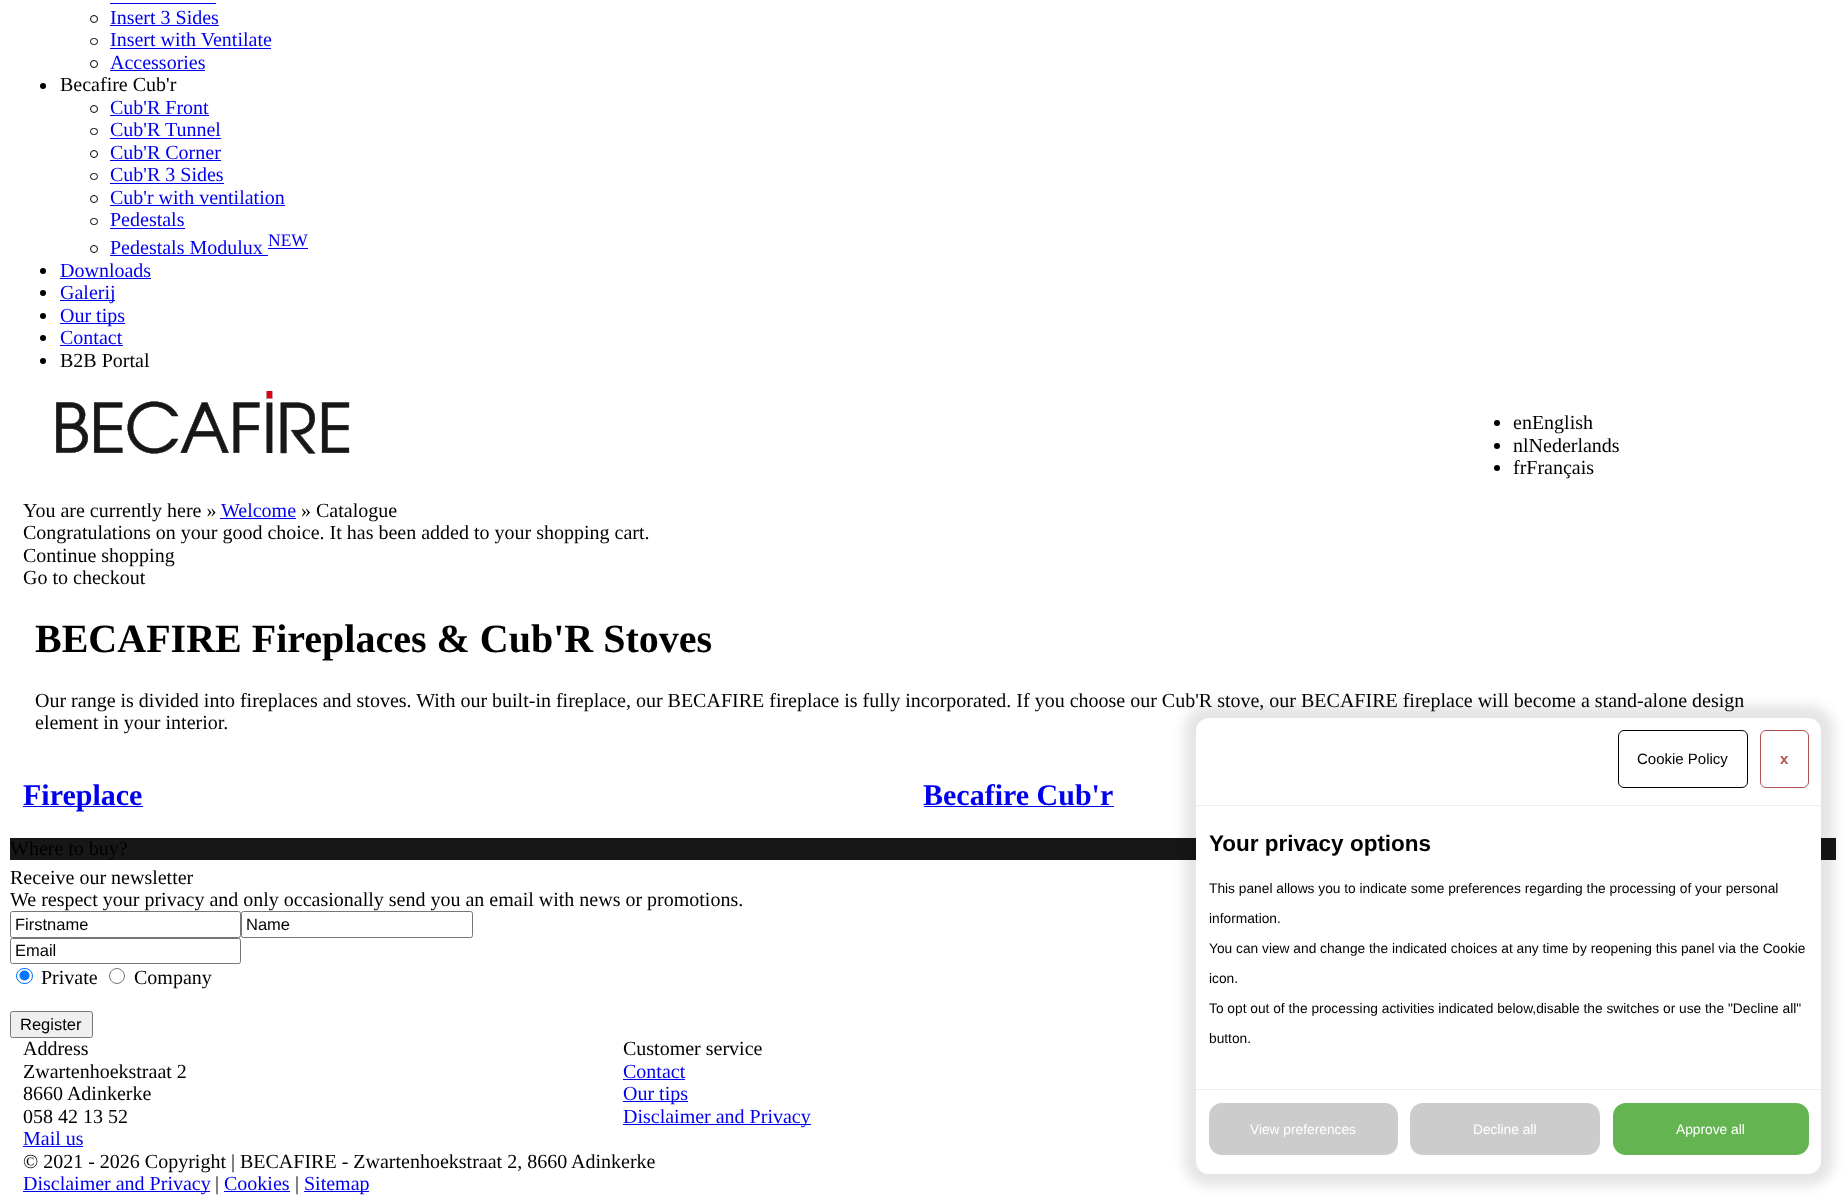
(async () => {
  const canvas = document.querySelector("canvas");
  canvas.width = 1846;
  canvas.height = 1198;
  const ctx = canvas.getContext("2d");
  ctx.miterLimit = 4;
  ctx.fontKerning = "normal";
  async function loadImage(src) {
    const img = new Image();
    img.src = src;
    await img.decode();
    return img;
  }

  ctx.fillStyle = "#ffffff";
  ctx.fillRect(0, 0, 1846, 1198);
  ctx.fillStyle = "#0000ee";
  ctx.fillRect(110, 3, 106, 1);
  ctx.beginPath();
  ctx.arc(94, 19, 3.5, 0, Math.PI * 2);
  ctx.strokeStyle = "#000000";
  ctx.stroke();
  ctx.fillRect(110, 25, 109, 1);
  ctx.beginPath();
  ctx.roundRect(90.5, 38.5, 7, 6, 3);
  ctx.stroke();
  ctx.fillRect(110, 48, 161, 1);
  ctx.beginPath();
  ctx.arc(94, 64, 3.5, 0, Math.PI * 2);
  ctx.stroke();
  ctx.fillRect(110, 70, 95, 1);
  ctx.fillStyle = "#000000";
  ctx.beginPath();
  ctx.arc(43, 86, 3, 0, Math.PI * 2);
  ctx.fill();
  ctx.beginPath();
  ctx.arc(94, 109, 3.5, 0, Math.PI * 2);
  ctx.stroke();
  ctx.fillStyle = "#0000ee";
  ctx.fillRect(110, 115, 99, 1);
  ctx.beginPath();
  ctx.roundRect(90.5, 128.5, 7, 6, 3);
  ctx.stroke();
  ctx.fillRect(110, 138, 111, 1);
  ctx.beginPath();
  ctx.arc(94, 154, 3.5, 0, Math.PI * 2);
  ctx.stroke();
  ctx.fillRect(110, 160, 111, 1);
  ctx.beginPath();
  ctx.roundRect(90.5, 173.5, 7, 6, 3);
  ctx.stroke();
  ctx.fillRect(110, 183, 114, 1);
  ctx.beginPath();
  ctx.arc(94, 199, 3.5, 0, Math.PI * 2);
  ctx.stroke();
  ctx.fillRect(110, 205, 175, 1);
  ctx.beginPath();
  ctx.roundRect(90.5, 218.5, 7, 6, 3);
  ctx.stroke();
  ctx.fillRect(110, 228, 75, 1);
  ctx.beginPath();
  ctx.arc(94, 249, 3.5, 0, Math.PI * 2);
  ctx.stroke();
  ctx.fillRect(110, 255, 158, 1);
  ctx.fillRect(268, 248, 40, 1);
  ctx.fillStyle = "#000000";
  ctx.beginPath();
  ctx.arc(43, 271, 3, 0, Math.PI * 2);
  ctx.fill();
  ctx.fillStyle = "#0000ee";
  ctx.fillRect(60, 278, 91, 1);
  ctx.fillStyle = "#000000";
  ctx.beginPath();
  ctx.arc(43, 293, 3, 0, Math.PI * 2);
  ctx.fill();
  ctx.fillStyle = "#0000ee";
  ctx.fillRect(60, 300, 55, 1);
  ctx.fillStyle = "#000000";
  ctx.beginPath();
  ctx.arc(43, 316, 3, 0, Math.PI * 2);
  ctx.fill();
  ctx.fillStyle = "#0000ee";
  ctx.fillRect(60, 323, 65, 1);
  ctx.fillStyle = "#000000";
  ctx.beginPath();
  ctx.arc(43, 338, 3, 0, Math.PI * 2);
  ctx.fill();
  ctx.fillStyle = "#0000ee";
  ctx.fillRect(60, 345, 63, 1);
  ctx.fillStyle = "#000000";
  ctx.beginPath();
  ctx.arc(43, 361, 3, 0, Math.PI * 2);
  ctx.fill();
  ctx.drawImage(await loadImage("img/1.png"), 56, 391, 294, 63);
  ctx.beginPath();
  ctx.arc(1497, 423, 3, 0, Math.PI * 2);
  ctx.fill();
  ctx.beginPath();
  ctx.arc(1497, 446, 3, 0, Math.PI * 2);
  ctx.fill();
  ctx.beginPath();
  ctx.arc(1497, 468, 3, 0, Math.PI * 2);
  ctx.fill();
  for (const [x, y, w, h, color] of [
    [220, 518, 76, 1, "#0000ee"],
    [23, 806, 120, 1, "#0000ee"],
    [924, 806, 190, 1, "#0000ee"],
    [10, 838, 1826, 22, "#171717"],
  ]) {
    ctx.fillStyle = color;
    ctx.fillRect(x, y, w, h);
  }
  ctx.beginPath();
  ctx.roundRect(10.5, 911.5, 230, 26, 2);
  ctx.strokeStyle = "#767676";
  ctx.stroke();
  ctx.beginPath();
  ctx.roundRect(241.5, 911.5, 231, 26, 2);
  ctx.stroke();
  ctx.beginPath();
  ctx.roundRect(10.5, 938.5, 230, 25, 2);
  ctx.stroke();
  ctx.beginPath();
  ctx.roundRect(16.5, 968.5, 16, 15, 7.5);
  ctx.strokeStyle = "#0075ff";
  ctx.stroke();
  ctx.fillStyle = "#0075ff";
  ctx.beginPath();
  ctx.arc(24.5, 975.5, 5, 0, Math.PI * 2);
  ctx.fill();
  ctx.beginPath();
  ctx.arc(117, 976, 7.5, 0, Math.PI * 2);
  ctx.strokeStyle = "#767676";
  ctx.stroke();
  ctx.fillStyle = "#efefef";
  ctx.beginPath();
  ctx.roundRect(10.5, 1011.5, 82, 26, 2);
  ctx.fill();
  ctx.stroke();
  for (const [x, y, w, h, color] of [
    [23, 1146, 60, 1, "#0000ee"],
    [623, 1079, 62, 1, "#0000ee"],
    [623, 1101, 65, 1, "#0000ee"],
    [623, 1124, 188, 1, "#0000ee"],
    [23, 1191, 187, 1, "#0000ee"],
    [224, 1191, 66, 1, "#0000ee"],
    [304, 1191, 65, 1, "#0000ee"],
  ]) {
    ctx.fillStyle = color;
    ctx.fillRect(x, y, w, h);
  }
  ctx.fillStyle = "rgba(0, 0, 0, 0.1)";
  ctx.filter = "blur(6px)";
  ctx.beginPath();
  ctx.roundRect(1184, 705, 650, 481, 25);
  ctx.fill();
  ctx.filter = "none";
  ctx.fillStyle = "#ffffff";
  ctx.beginPath();
  ctx.roundRect(1196, 718, 625, 456, 13);
  ctx.fill();
  ctx.fillStyle = "#efefef";
  ctx.fillRect(1196, 805, 625, 1);
  ctx.beginPath();
  ctx.roundRect(1618.5, 730.5, 129, 57, 5.5);
  ctx.strokeStyle = "#000000";
  ctx.stroke();
  ctx.beginPath();
  ctx.roundRect(1760.5, 730.5, 48, 57, 5.5);
  ctx.strokeStyle = "#b55151";
  ctx.stroke();
  ctx.fillRect(1196, 1089, 625, 1);
  ctx.fillStyle = "#cccccc";
  ctx.beginPath();
  ctx.roundRect(1209, 1103, 189, 52, 13);
  ctx.fill();
  ctx.beginPath();
  ctx.roundRect(1410, 1103, 190, 52, 13);
  ctx.fill();
  ctx.fillStyle = "#64b551";
  ctx.beginPath();
  ctx.roundRect(1613, 1103, 196, 52, 13);
  ctx.fill();
  ctx.font = "20px Liberation Serif";
  ctx.fillStyle = "#0000ee";
  for (const [text, x, y] of [
    ["Insert 3 Sides", 110, 24],
    ["Insert with Ventilate", 110, 46],
    ["Accessories", 110, 69],
  ]) {
    ctx.fillText(text, x, y);
  }
  ctx.fillStyle = "#000000";
  ctx.fillText("Becafire Cub'r", 60, 91);
  ctx.fillStyle = "#0000ee";
  for (const [text, x, y] of [
    ["Cub'R Front", 110, 114],
    ["Cub'R Tunnel", 110, 136],
    ["Cub'R Corner", 110, 159],
    ["Cub'R 3 Sides", 110, 181],
    ["Cub'r with ventilation", 110, 204],
    ["Pedestals", 110, 226],
    ["Pedestals Modulux", 110, 254],
  ]) {
    ctx.fillText(text, x, y);
  }
  ctx.font = "17.5px Liberation Serif";
  ctx.fillText("NEW", 268, 246);
  ctx.font = "20px Liberation Serif";
  for (const [text, x, y] of [
    ["Downloads", 60, 277],
    ["Galerij", 60, 299],
    ["Our tips", 60, 322],
    ["Contact", 60, 344],
  ]) {
    ctx.fillText(text, x, y);
  }
  ctx.fillStyle = "#000000";
  for (const [text, x, y] of [
    ["B2B Portal", 60, 367],
    ["enEnglish", 1513, 429],
    ["nlNederlands", 1513, 452],
    ["frFrançais", 1513, 474],
    ["You are currently here »", 23, 517],
  ]) {
    ctx.fillText(text, x, y);
  }
  ctx.fillStyle = "#0000ee";
  ctx.fillText("Welcome", 221, 517);
  ctx.fillStyle = "#000000";
  for (const [text, x, y] of [
    ["» Catalogue", 301, 517],
    ["Congratulations on your good choice. It has been added to your shopping cart.", 23, 539],
    ["Continue shopping", 23, 562],
    ["Go to checkout", 23, 584],
  ]) {
    ctx.fillText(text, x, y);
  }
  ctx.font = "bold 40px Liberation Serif";
  ctx.fillText("BECAFIRE Fireplaces & Cub'R Stoves", 35, 652);
  ctx.font = "20px Liberation Serif";
  ctx.fillText("Our range is divided into fireplaces and stoves. With our built-in fireplace, our BECAFIRE fireplace is fully incorporated. If you choose our Cub'R stove, our BECAFIRE fireplace will become a stand-alone design", 35, 707);
  ctx.fillText("element in your interior.", 35, 729);
  ctx.font = "bold 30px Liberation Serif";
  ctx.fillStyle = "#0000ee";
  ctx.fillText("Fireplace", 23, 805);
  ctx.fillText("Becafire Cub'r", 923, 805);
  ctx.font = "20px Liberation Serif";
  ctx.fillStyle = "#000000";
  for (const [text, x, y] of [
    ["Where to buy?", 10, 855],
    ["Receive our newsletter", 10, 884],
    ["We respect your privacy and only occasionally send you an email with news or promotions.", 10, 906],
  ]) {
    ctx.fillText(text, x, y);
  }
  ctx.font = "16.5px Liberation Sans";
  for (const [text, x, y] of [
    ["Firstname", 15, 930],
    ["Name", 246, 930],
    ["Email", 15, 956],
  ]) {
    ctx.fillText(text, x, y);
  }
  ctx.font = "20px Liberation Serif";
  ctx.fillText("Private", 41, 984);
  ctx.fillText("Company", 134, 984);
  ctx.font = "16.5px Liberation Sans";
  ctx.fillText("Register", 20, 1030);
  ctx.font = "20px Liberation Serif";
  for (const [text, x, y] of [
    ["Address", 23, 1055],
    ["Zwartenhoekstraat 2", 23, 1078],
    ["8660 Adinkerke", 23, 1100],
    ["058 42 13 52", 23, 1123],
  ]) {
    ctx.fillText(text, x, y);
  }
  ctx.fillStyle = "#0000ee";
  ctx.fillText("Mail us", 23, 1145);
  ctx.fillStyle = "#000000";
  ctx.fillText("Customer service", 623, 1055);
  ctx.fillStyle = "#0000ee";
  for (const [text, x, y] of [
    ["Contact", 623, 1078],
    ["Our tips", 623, 1100],
    ["Disclaimer and Privacy", 623, 1123],
  ]) {
    ctx.fillText(text, x, y);
  }
  ctx.fillStyle = "#000000";
  ctx.fillText("© 2021 - 2026 Copyright | BECAFIRE - Zwartenhoekstraat 2, 8660 Adinkerke", 23, 1168);
  ctx.fillStyle = "#0000ee";
  ctx.fillText("Disclaimer and Privacy", 23, 1190);
  ctx.fillStyle = "#000000";
  ctx.fillText("|", 215, 1190);
  ctx.fillStyle = "#0000ee";
  ctx.fillText("Cookies", 224, 1190);
  ctx.fillStyle = "#000000";
  ctx.fillText("|", 295, 1190);
  ctx.fillStyle = "#0000ee";
  ctx.fillText("Sitemap", 304, 1190);
  ctx.font = "15px Liberation Sans";
  ctx.fillStyle = "#000000";
  ctx.fillText("Cookie Policy", 1637, 764);
  ctx.font = "bold 15px Liberation Sans";
  ctx.fillStyle = "#b55151";
  ctx.fillText("x", 1780, 764);
  ctx.font = "bold 22.5px Liberation Sans";
  ctx.fillStyle = "#000000";
  ctx.fillText("Your privacy options", 1209, 851);
  ctx.font = "13.75px Liberation Sans";
  for (const [text, x, y] of [
    ["This panel allows you to indicate some preferences regarding the processing of your personal", 1209, 893],
    ["information.", 1209, 923],
    ["You can view and change the indicated choices at any time by reopening this panel via the Cookie", 1209, 953],
    ["icon.", 1209, 983],
    ["To opt out of the processing activities indicated below,disable the switches or use the \"Decline all\"", 1209, 1013],
    ["button.", 1209, 1043],
  ]) {
    ctx.fillText(text, x, y);
  }
  ctx.fillStyle = "#ffffff";
  for (const [text, x, y] of [
    ["View preferences", 1250, 1134],
    ["Decline all", 1473, 1134],
    ["Approve all", 1676, 1134],
  ]) {
    ctx.fillText(text, x, y);
  }
})();
